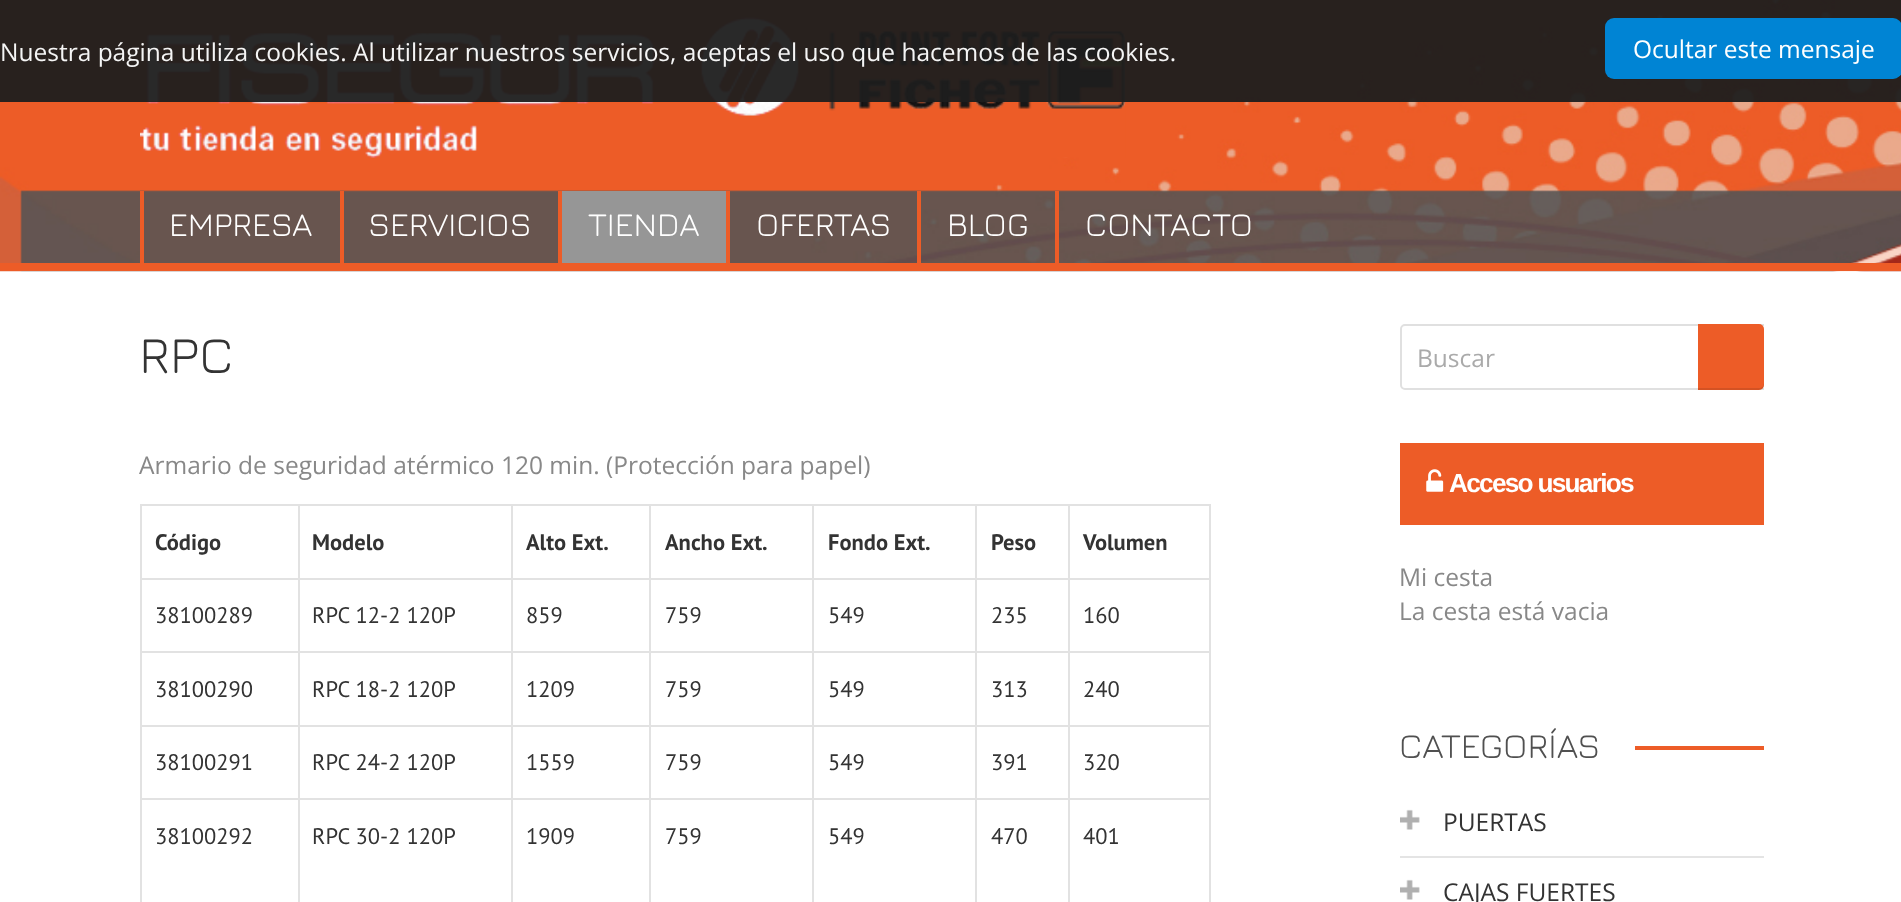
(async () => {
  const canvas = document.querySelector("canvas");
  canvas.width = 1901;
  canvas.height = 902;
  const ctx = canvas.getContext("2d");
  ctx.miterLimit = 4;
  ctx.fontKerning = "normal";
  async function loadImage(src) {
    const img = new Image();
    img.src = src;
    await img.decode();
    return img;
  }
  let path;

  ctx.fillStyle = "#ffffff";
  ctx.fillRect(0, 0, 1901, 902);
  ctx.drawImage(await loadImage("img/1.png"), 0, 0, 1901, 272);
  ctx.drawImage(await loadImage("img/2.png"), 140, 17, 986, 141);
  ctx.fillStyle = "rgba(29, 29, 29, 0.95)";
  ctx.fillRect(0, 0, 1901, 102);
  ctx.fillStyle = "#0084d4";
  ctx.beginPath();
  ctx.roundRect(1605, 18, 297, 61, 9);
  ctx.fill();
  for (const [x, y, w, h, color] of [
    [0, 263, 1901, 8, "#ed5c27"],
    [140, 191, 4, 72, "#ed5c27"],
    [340, 191, 4, 72, "#ed5c27"],
    [562, 191, 164, 72, "#969696"],
    [558, 191, 4, 72, "#ed5c27"],
    [726, 191, 4, 72, "#ed5c27"],
    [917, 191, 4, 72, "#ed5c27"],
    [1055, 191, 4, 72, "#ed5c27"],
    [1068, 504, 143, 2, "#e2e2e2"],
    [1068, 578, 143, 2, "#e2e2e2"],
    [1068, 651, 143, 2, "#e2e2e2"],
    [1068, 725, 143, 2, "#e2e2e2"],
    [1068, 798, 143, 2, "#e2e2e2"],
    [1068, 798, 2, 104, "#e2e2e2"],
    [975, 798, 94, 2, "#e2e2e2"],
    [1068, 725, 2, 75, "#e2e2e2"],
    [975, 725, 94, 2, "#e2e2e2"],
    [1068, 651, 2, 75, "#e2e2e2"],
    [975, 651, 94, 2, "#e2e2e2"],
    [1068, 578, 2, 75, "#e2e2e2"],
    [975, 578, 94, 2, "#e2e2e2"],
    [1068, 504, 2, 75, "#e2e2e2"],
    [975, 504, 94, 2, "#e2e2e2"],
    [975, 798, 2, 104, "#e2e2e2"],
    [812, 798, 165, 2, "#e2e2e2"],
    [975, 725, 2, 75, "#e2e2e2"],
    [812, 725, 165, 2, "#e2e2e2"],
    [975, 651, 2, 75, "#e2e2e2"],
    [812, 651, 165, 2, "#e2e2e2"],
    [975, 578, 2, 75, "#e2e2e2"],
    [812, 578, 165, 2, "#e2e2e2"],
    [975, 504, 2, 75, "#e2e2e2"],
    [812, 504, 165, 2, "#e2e2e2"],
    [812, 798, 2, 104, "#e2e2e2"],
    [649, 798, 165, 2, "#e2e2e2"],
    [812, 725, 2, 75, "#e2e2e2"],
    [649, 725, 165, 2, "#e2e2e2"],
    [812, 651, 2, 75, "#e2e2e2"],
    [649, 651, 165, 2, "#e2e2e2"],
    [812, 578, 2, 75, "#e2e2e2"],
    [649, 578, 165, 2, "#e2e2e2"],
    [812, 504, 2, 75, "#e2e2e2"],
    [649, 504, 165, 2, "#e2e2e2"],
    [649, 798, 2, 104, "#e2e2e2"],
    [511, 798, 140, 2, "#e2e2e2"],
    [649, 725, 2, 75, "#e2e2e2"],
    [511, 725, 140, 2, "#e2e2e2"],
    [649, 651, 2, 75, "#e2e2e2"],
    [511, 651, 140, 2, "#e2e2e2"],
    [649, 578, 2, 75, "#e2e2e2"],
    [511, 578, 140, 2, "#e2e2e2"],
    [649, 504, 2, 75, "#e2e2e2"],
    [511, 504, 140, 2, "#e2e2e2"],
    [511, 798, 2, 104, "#e2e2e2"],
    [298, 798, 215, 2, "#e2e2e2"],
    [511, 725, 2, 75, "#e2e2e2"],
    [298, 725, 215, 2, "#e2e2e2"],
    [511, 651, 2, 75, "#e2e2e2"],
    [298, 651, 215, 2, "#e2e2e2"],
    [511, 578, 2, 75, "#e2e2e2"],
    [298, 578, 215, 2, "#e2e2e2"],
    [511, 504, 2, 75, "#e2e2e2"],
    [298, 504, 215, 2, "#e2e2e2"],
    [298, 798, 2, 104, "#e2e2e2"],
    [140, 798, 159, 2, "#e2e2e2"],
    [298, 725, 2, 75, "#e2e2e2"],
    [140, 725, 159, 2, "#e2e2e2"],
    [298, 651, 2, 75, "#e2e2e2"],
    [140, 651, 159, 2, "#e2e2e2"],
    [298, 578, 2, 75, "#e2e2e2"],
    [140, 578, 159, 2, "#e2e2e2"],
    [298, 504, 2, 75, "#e2e2e2"],
    [140, 504, 159, 2, "#e2e2e2"],
    [140, 798, 2, 104, "#e2e2e2"],
    [140, 725, 2, 75, "#e2e2e2"],
    [140, 651, 2, 75, "#e2e2e2"],
    [140, 578, 2, 75, "#e2e2e2"],
    [140, 504, 2, 75, "#e2e2e2"],
    [1209, 798, 2, 104, "#e2e2e2"],
    [1209, 725, 2, 75, "#e2e2e2"],
    [1209, 651, 2, 75, "#e2e2e2"],
    [1209, 578, 2, 75, "#e2e2e2"],
    [1209, 504, 2, 75, "#e2e2e2"],
  ]) {
    ctx.fillStyle = color;
    ctx.fillRect(x, y, w, h);
  }
  ctx.save();
  ctx.beginPath();
  ctx.rect(1400, 324, 364, 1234);
  ctx.clip();
  ctx.beginPath();
  ctx.roundRect(1401, 325, 378, 64, 4);
  ctx.strokeStyle = "#e0e0e0";
  ctx.lineWidth = 2;
  ctx.stroke();
  ctx.restore();
  ctx.fillStyle = "#ed5c27";
  ctx.beginPath();
  ctx.roundRect(1698, 324, 66, 66, [0, 5, 5, 0]);
  ctx.fill();
  ctx.fillStyle = "rgba(0, 0, 0, 0.1)";
  path = new Path2D("M1698 388V390H1759C1762 390 1764 388 1764 385V383C1764 386 1762 388 1759 388Z");
  ctx.fill(path);
  ctx.fillStyle = "#ed5c27";
  ctx.fillRect(1400, 443, 364, 82);
  ctx.drawImage(await loadImage("img/3.png"), 1426, 469, 18, 23);
  ctx.fillRect(1635, 746, 129, 4);
  ctx.drawImage(await loadImage("img/4.png"), 1400, 809, 20, 21);
  ctx.fillStyle = "#e4e4e4";
  ctx.fillRect(1400, 856, 364, 2);
  ctx.drawImage(await loadImage("img/4.png"), 1400, 879, 20, 21);
  ctx.font = "24.5px Open Sans";
  ctx.fillStyle = "#f5f5f5";
  ctx.fillText("Nuestra página utiliza cookies. Al utilizar nuestros servicios, aceptas el uso que hacemos de las cookies.", 0, 61);
  ctx.fillStyle = "#ffffff";
  ctx.fillText("Ocultar este mensaje", 1633, 58);
  ctx.font = "300 33.25px Jura";
  for (const [text, x, y] of [
    ["EMPRESA", 169, 236],
    ["SERVICIOS", 368, 236],
    ["TIENDA", 588, 236],
    ["OFERTAS", 756, 236],
    ["BLOG", 947, 236],
    ["CONTACTO", 1085, 236],
  ]) {
    ctx.fillText(text, x, y);
  }
  ctx.font = "300 52px Jura";
  ctx.fillStyle = "#333333";
  ctx.fillText("RPC", 139, 373);
  ctx.font = "24.5px Open Sans";
  ctx.fillStyle = "#888888";
  ctx.fillText("Armario de seguridad atérmico 120 min. (Protección para papel)", 139, 474);
  ctx.font = "bold 22.5px PT Sans";
  ctx.fillStyle = "#333333";
  for (const [text, x, y] of [
    ["Código", 155, 550],
    ["Modelo", 312, 550],
    ["Alto Ext.", 526, 550],
    ["Ancho Ext.", 665, 550],
    ["Fondo Ext.", 828, 550],
    ["Peso", 991, 550],
    ["Volumen", 1083, 550],
  ]) {
    ctx.fillText(text, x, y);
  }
  ctx.font = "22.5px PT Sans";
  for (const [text, x, y] of [
    ["38100289", 155, 623],
    ["RPC 12-2 120P", 312, 623],
    ["859", 526, 623],
    ["759", 665, 623],
    ["549", 828, 623],
    ["235", 991, 623],
    ["160", 1083, 623],
    ["38100290", 155, 697],
    ["RPC 18-2 120P", 312, 697],
    ["1209", 526, 697],
    ["759", 665, 697],
    ["549", 828, 697],
    ["313", 991, 697],
    ["240", 1083, 697],
    ["38100291", 155, 770],
    ["RPC 24-2 120P", 312, 770],
    ["1559", 526, 770],
    ["759", 665, 770],
    ["549", 828, 770],
    ["391", 991, 770],
    ["320", 1083, 770],
    ["38100292", 155, 844],
    ["RPC 30-2 120P", 312, 844],
    ["1909", 526, 844],
    ["759", 665, 844],
    ["549", 828, 844],
    ["470", 991, 844],
    ["401", 1083, 844],
  ]) {
    ctx.fillText(text, x, y);
  }
  ctx.font = "24.5px Open Sans";
  ctx.fillStyle = "#aaaaaa";
  ctx.fillText("Buscar", 1417, 367);
  ctx.letterSpacing = "-1.75px";
  ctx.font = "bold 26.25px Liberation Sans";
  ctx.fillStyle = "#ffffff";
  ctx.fillText("Acceso usuarios", 1449, 492);
  ctx.letterSpacing = "0px";
  ctx.font = "24.5px Open Sans";
  ctx.fillStyle = "#888888";
  ctx.fillText("Mi cesta", 1399, 586);
  ctx.fillText("La cesta está vacia", 1399, 620);
  ctx.font = "300 35px Jura";
  ctx.fillStyle = "#505050";
  ctx.fillText("CATEGORÍAS", 1399, 758);
  ctx.font = "24.5px Open Sans";
  ctx.fillStyle = "#333333";
  ctx.fillText("PUERTAS", 1443, 831);
  ctx.fillText("CAJAS FUERTES", 1443, 901);
})();
